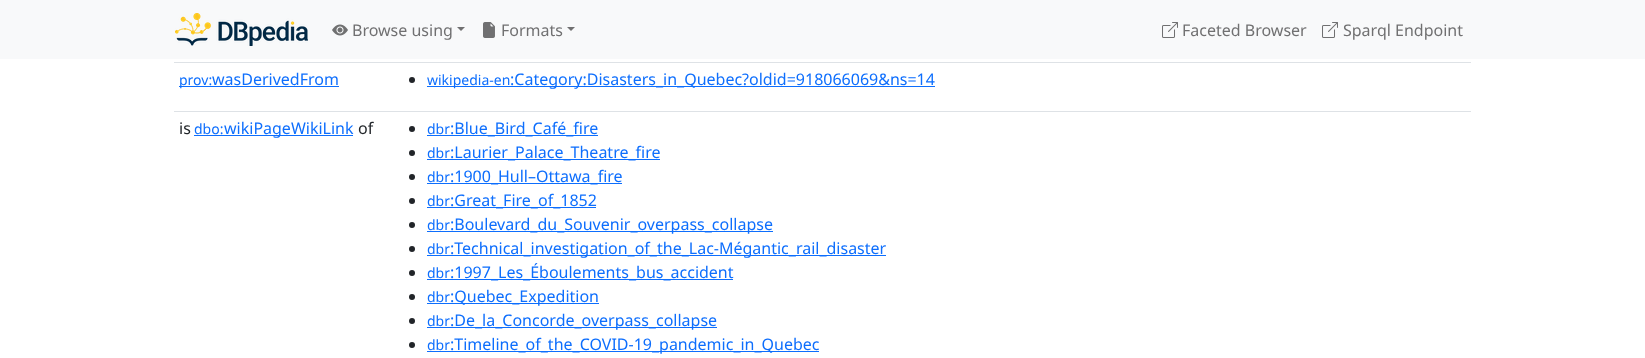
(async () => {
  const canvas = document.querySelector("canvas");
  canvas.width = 1645;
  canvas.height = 358;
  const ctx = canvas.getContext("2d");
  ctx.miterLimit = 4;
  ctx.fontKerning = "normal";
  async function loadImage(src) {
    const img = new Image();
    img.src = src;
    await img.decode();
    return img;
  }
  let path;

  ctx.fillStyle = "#ffffff";
  ctx.fillRect(0, 0, 1645, 358);
  ctx.fillStyle = "#f8f9fa";
  ctx.fillRect(0, 0, 1645, 59);
  ctx.drawImage(await loadImage("img/1.png"), 175, 13, 133, 33);
  ctx.drawImage(await loadImage("img/2.png"), 332, 24, 16, 12);
  ctx.fillStyle = "#707071";
  path = new Path2D("M457 27H465L461 31Z");
  ctx.fill(path);
  ctx.drawImage(await loadImage("img/3.png"), 483, 22, 12, 16);
  path = new Path2D("M567 27H575L571 31Z");
  ctx.fill(path);
  ctx.drawImage(await loadImage("img/4.png"), 1162, 22, 16, 16);
  ctx.drawImage(await loadImage("img/4.png"), 1322, 22, 16, 16);
  for (const [x, y, w, h, color] of [
    [174, 62, 1297, 1, "#dee2e6"],
    [179, 86, 160, 1, "#0d6efd"],
    [174, 111, 1297, 1, "#dee2e6"],
  ]) {
    ctx.fillStyle = color;
    ctx.fillRect(x, y, w, h);
  }
  ctx.fillStyle = "#212529";
  ctx.beginPath();
  ctx.arc(412, 80, 3, 0, Math.PI * 2);
  ctx.fill();
  ctx.fillStyle = "#0d6efd";
  ctx.fillRect(427, 86, 508, 1);
  ctx.fillRect(194, 135, 159, 1);
  ctx.fillStyle = "#212529";
  ctx.beginPath();
  ctx.arc(412, 129, 3, 0, Math.PI * 2);
  ctx.fill();
  ctx.fillStyle = "#0d6efd";
  ctx.fillRect(427, 135, 171, 1);
  ctx.fillStyle = "#212529";
  ctx.beginPath();
  ctx.arc(412, 153, 3, 0, Math.PI * 2);
  ctx.fill();
  ctx.fillStyle = "#0d6efd";
  ctx.fillRect(427, 159, 233, 1);
  ctx.fillStyle = "#212529";
  ctx.beginPath();
  ctx.arc(412, 177, 3, 0, Math.PI * 2);
  ctx.fill();
  ctx.fillStyle = "#0d6efd";
  ctx.fillRect(427, 183, 195, 1);
  ctx.fillStyle = "#212529";
  ctx.beginPath();
  ctx.arc(412, 201, 3, 0, Math.PI * 2);
  ctx.fill();
  ctx.fillStyle = "#0d6efd";
  ctx.fillRect(427, 207, 169, 1);
  ctx.fillStyle = "#212529";
  ctx.beginPath();
  ctx.arc(412, 225, 3, 0, Math.PI * 2);
  ctx.fill();
  ctx.fillStyle = "#0d6efd";
  ctx.fillRect(427, 231, 346, 1);
  ctx.fillStyle = "#212529";
  ctx.beginPath();
  ctx.arc(412, 249, 3, 0, Math.PI * 2);
  ctx.fill();
  ctx.fillStyle = "#0d6efd";
  ctx.fillRect(427, 255, 459, 1);
  ctx.fillStyle = "#212529";
  ctx.beginPath();
  ctx.arc(412, 273, 3, 0, Math.PI * 2);
  ctx.fill();
  ctx.fillStyle = "#0d6efd";
  ctx.fillRect(427, 279, 306, 1);
  ctx.fillStyle = "#212529";
  ctx.beginPath();
  ctx.arc(412, 297, 3, 0, Math.PI * 2);
  ctx.fill();
  ctx.fillStyle = "#0d6efd";
  ctx.fillRect(427, 303, 172, 1);
  ctx.fillStyle = "#212529";
  ctx.beginPath();
  ctx.arc(412, 321, 3, 0, Math.PI * 2);
  ctx.fill();
  ctx.fillStyle = "#0d6efd";
  ctx.fillRect(427, 327, 290, 1);
  ctx.fillStyle = "#212529";
  ctx.beginPath();
  ctx.arc(412, 345, 3, 0, Math.PI * 2);
  ctx.fill();
  ctx.fillStyle = "#0d6efd";
  ctx.fillRect(427, 351, 392, 1);
  ctx.font = "16px Noto Sans";
  ctx.fillStyle = "#707071";
  for (const [text, x, y] of [
    ["Browse using", 352, 36],
    ["Formats", 501, 36],
    ["Faceted Browser", 1182, 36],
    ["Sparql Endpoint", 1343, 36],
  ]) {
    ctx.fillText(text, x, y);
  }
  ctx.font = "14px Noto Sans";
  ctx.fillStyle = "#0d6efd";
  ctx.fillText("prov:", 179, 85);
  ctx.font = "16px Noto Sans";
  ctx.fillText("wasDerivedFrom", 212, 85);
  ctx.font = "14px Noto Sans";
  ctx.fillText("wikipedia-en", 427, 85);
  ctx.font = "16px Noto Sans";
  ctx.fillText(":Category:Disasters_in_Quebec?oldid=918066069&ns=14", 510, 85);
  ctx.fillStyle = "#212529";
  ctx.fillText("is", 179, 134);
  ctx.font = "14px Noto Sans";
  ctx.fillStyle = "#0d6efd";
  ctx.fillText("dbo:", 194, 134);
  ctx.font = "16px Noto Sans";
  ctx.fillText("wikiPageWikiLink", 224, 134);
  ctx.fillStyle = "#212529";
  ctx.fillText("of", 358, 134);
  ctx.font = "14px Noto Sans";
  ctx.fillStyle = "#0d6efd";
  ctx.fillText("dbr", 427, 134);
  ctx.font = "16px Noto Sans";
  ctx.fillText(":Blue_Bird_Café_fire", 450, 134);
  ctx.font = "14px Noto Sans";
  ctx.fillText("dbr", 427, 158);
  ctx.font = "16px Noto Sans";
  ctx.fillText(":Laurier_Palace_Theatre_fire", 450, 158);
  ctx.font = "14px Noto Sans";
  ctx.fillText("dbr", 427, 182);
  ctx.font = "16px Noto Sans";
  ctx.fillText(":1900_Hull–Ottawa_fire", 450, 182);
  ctx.font = "14px Noto Sans";
  ctx.fillText("dbr", 427, 206);
  ctx.font = "16px Noto Sans";
  ctx.fillText(":Great_Fire_of_1852", 450, 206);
  ctx.font = "14px Noto Sans";
  ctx.fillText("dbr", 427, 230);
  ctx.font = "16px Noto Sans";
  ctx.fillText(":Boulevard_du_Souvenir_overpass_collapse", 450, 230);
  ctx.font = "14px Noto Sans";
  ctx.fillText("dbr", 427, 254);
  ctx.font = "16px Noto Sans";
  ctx.fillText(":Technical_investigation_of_the_Lac-Mégantic_rail_disaster", 450, 254);
  ctx.font = "14px Noto Sans";
  ctx.fillText("dbr", 427, 278);
  ctx.font = "16px Noto Sans";
  ctx.fillText(":1997_Les_Éboulements_bus_accident", 450, 278);
  ctx.font = "14px Noto Sans";
  ctx.fillText("dbr", 427, 302);
  ctx.font = "16px Noto Sans";
  ctx.fillText(":Quebec_Expedition", 450, 302);
  ctx.font = "14px Noto Sans";
  ctx.fillText("dbr", 427, 326);
  ctx.font = "16px Noto Sans";
  ctx.fillText(":De_la_Concorde_overpass_collapse", 450, 326);
  ctx.font = "14px Noto Sans";
  ctx.fillText("dbr", 427, 350);
  ctx.font = "16px Noto Sans";
  ctx.fillText(":Timeline_of_the_COVID-19_pandemic_in_Quebec", 450, 350);
})();
